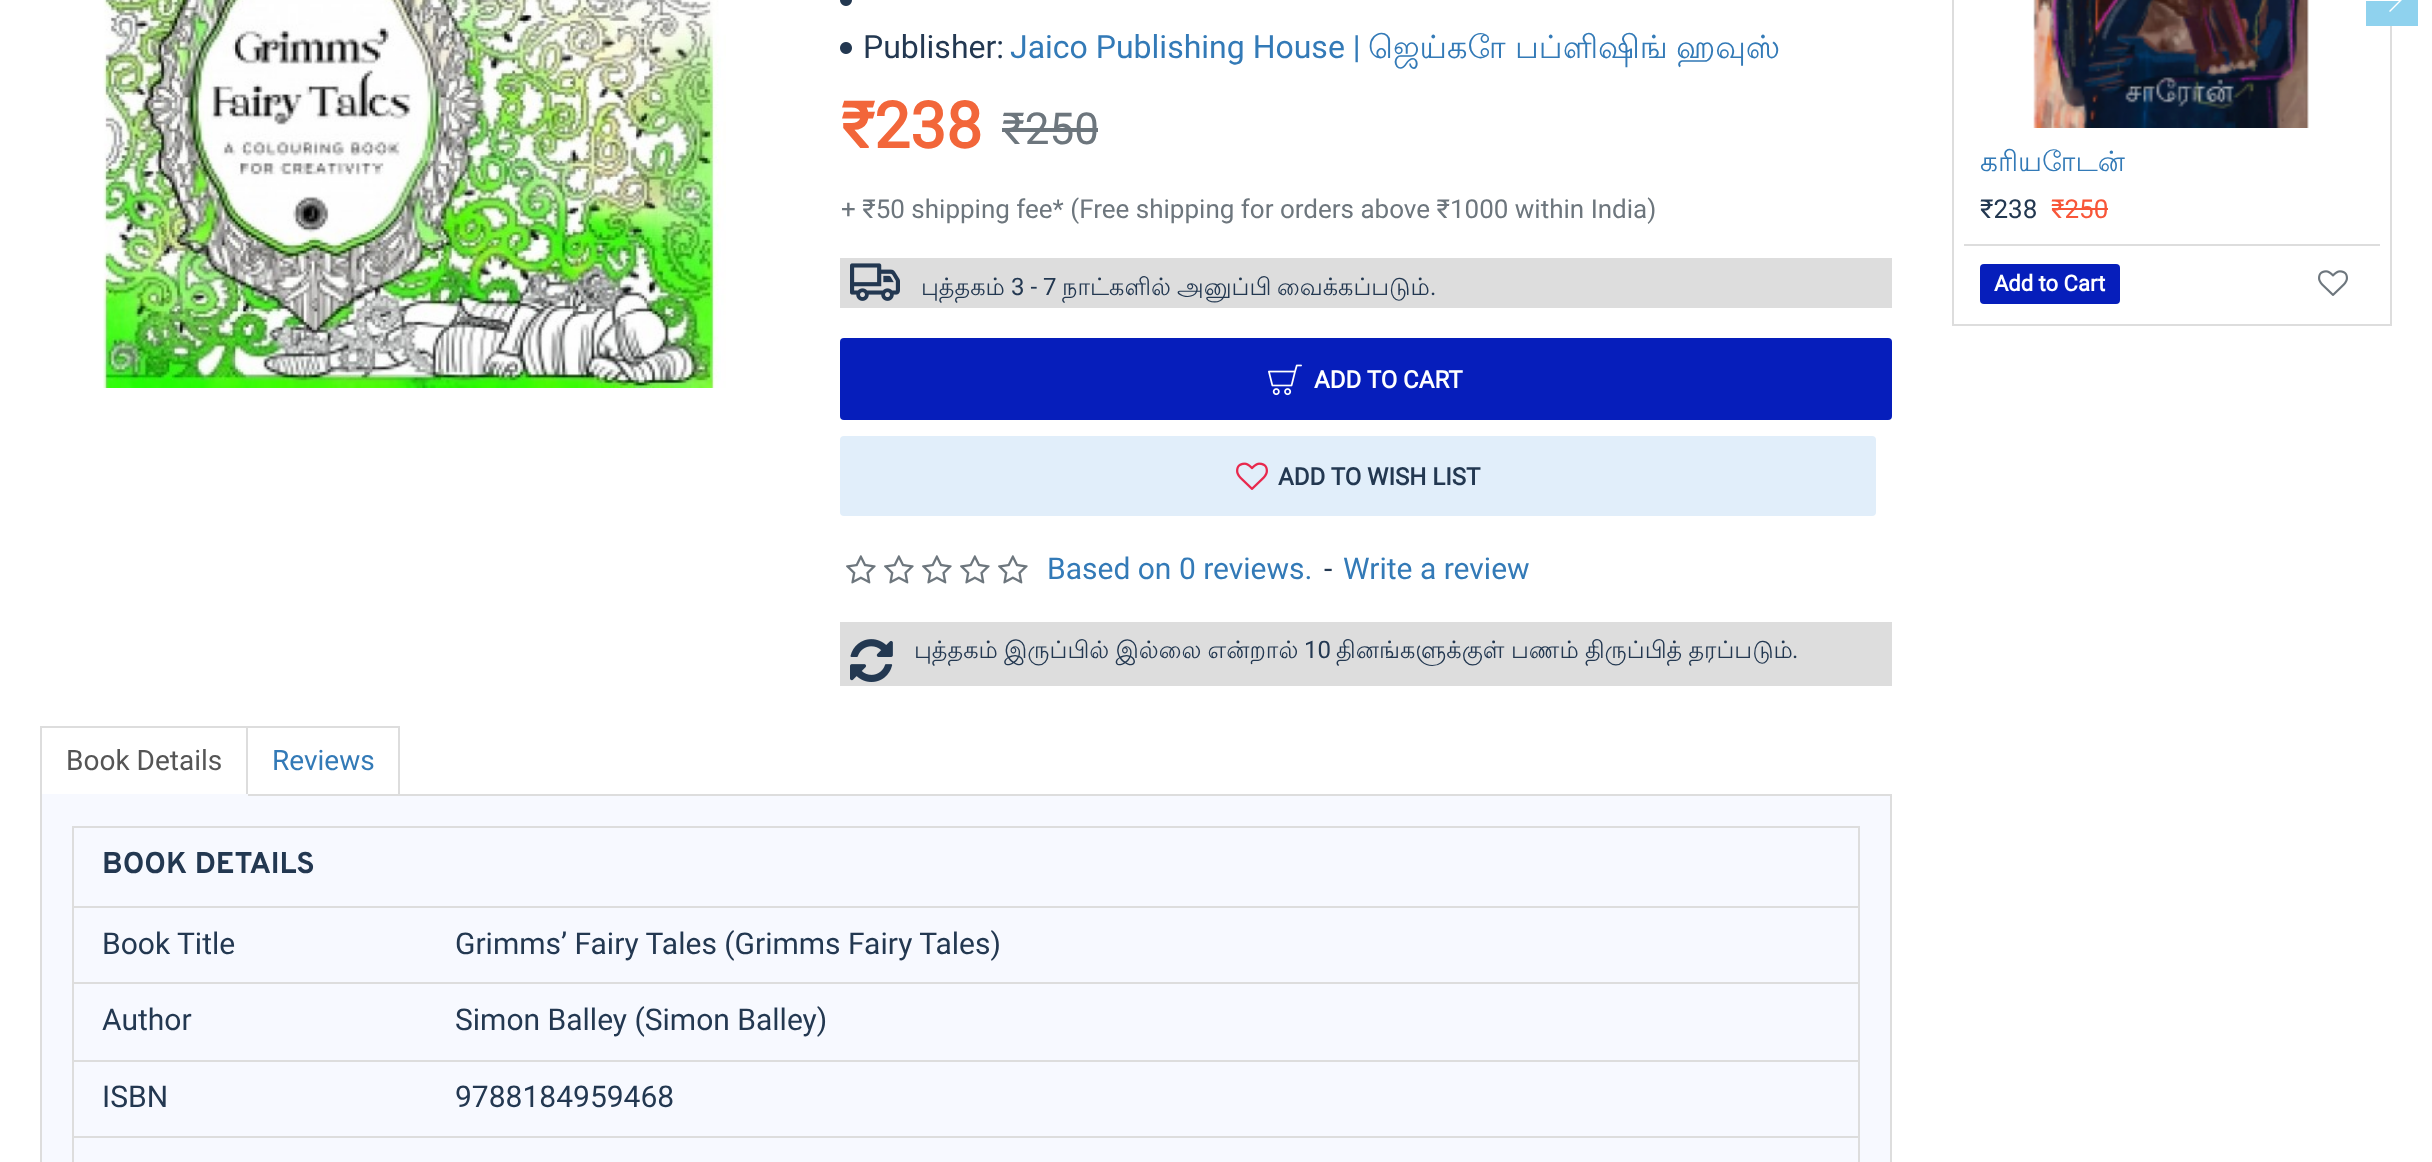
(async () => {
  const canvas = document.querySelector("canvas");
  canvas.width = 2432;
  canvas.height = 1162;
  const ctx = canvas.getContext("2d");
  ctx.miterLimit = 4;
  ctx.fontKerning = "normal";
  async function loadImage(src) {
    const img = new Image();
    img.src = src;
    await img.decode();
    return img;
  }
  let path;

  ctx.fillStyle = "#ffffff";
  ctx.fillRect(0, 0, 2432, 1162);
  ctx.drawImage(await loadImage("img/1.png"), 103, 0, 623, 388);
  ctx.drawImage(await loadImage("img/2.png"), 840, 0, 12, 6);
  ctx.drawImage(await loadImage("img/3.png"), 840, 42, 12, 12);
  ctx.fillStyle = "#6d767d";
  ctx.fillRect(1002, 128, 96, 4);
  ctx.fillStyle = "#dddddd";
  ctx.fillRect(840, 258, 1052, 50);
  ctx.drawImage(await loadImage("img/4.png"), 850, 263, 50, 38);
  ctx.fillStyle = "#061ebb";
  ctx.beginPath();
  ctx.roundRect(840, 338, 1052, 82, 4);
  ctx.fill();
  ctx.drawImage(await loadImage("img/5.png"), 1268, 364, 34, 32);
  ctx.fillStyle = "#e1eefa";
  ctx.beginPath();
  ctx.roundRect(840, 436, 1036, 80, 4);
  ctx.fill();
  ctx.drawImage(await loadImage("img/6.png"), 1236, 462, 32, 28);
  ctx.drawImage(await loadImage("img/7.png"), 846, 555, 30, 29);
  ctx.drawImage(await loadImage("img/7.png"), 884, 555, 30, 29);
  ctx.drawImage(await loadImage("img/7.png"), 922, 555, 30, 29);
  ctx.drawImage(await loadImage("img/7.png"), 960, 555, 30, 29);
  ctx.drawImage(await loadImage("img/7.png"), 998, 555, 30, 29);
  ctx.fillStyle = "#dddddd";
  ctx.fillRect(840, 622, 1052, 64);
  ctx.drawImage(await loadImage("img/8.png"), 850, 639, 43, 43);
  for (const [x, y, w, h, color] of [
    [40, 726, 2, 70, "#dddddd"],
    [42, 726, 358, 2, "#dddddd"],
    [398, 726, 2, 70, "#dddddd"],
  ]) {
    ctx.fillStyle = color;
    ctx.fillRect(x, y, w, h);
  }
  ctx.fillStyle = "#f7f9ff";
  ctx.beginPath();
  ctx.rect(41, 795, 1850, 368);
  ctx.fill();
  ctx.strokeStyle = "#dddddd";
  ctx.lineWidth = 2;
  ctx.stroke();
  ctx.fillStyle = "#dddddd";
  ctx.fillRect(246, 726, 2, 70);
  ctx.fillStyle = "#f7f9ff";
  ctx.fillRect(42, 794, 206, 2);
  ctx.strokeRect(73, 827, 1786, 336);
  for (const [x, y, w, h, color] of [
    [74, 906, 1784, 2, "#dddddd"],
    [74, 982, 1784, 2, "#dddddd"],
    [74, 1060, 1784, 2, "#dddddd"],
    [74, 1136, 1784, 2, "#dddddd"],
  ]) {
    ctx.fillStyle = color;
    ctx.fillRect(x, y, w, h);
  }
  ctx.strokeRect(1953, -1, 438, 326);
  ctx.fillStyle = "#ffffff";
  ctx.fillRect(2390, 0, 2, 12);
  ctx.fillStyle = "#8fd2ee";
  path = new Path2D("M2366-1H2399L2389-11L2390-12L2402 0L2390 12L2389 11L2399 1H2366V26H2418V-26H2366Z");
  ctx.fill(path);
  ctx.drawImage(await loadImage("img/9.png"), 2033, 0, 276, 128);
  ctx.fillStyle = "#f85639";
  ctx.fillRect(2052, 208, 56, 2);
  ctx.fillStyle = "#dddddd";
  ctx.fillRect(1964, 244, 416, 2);
  ctx.fillStyle = "#061ebb";
  ctx.beginPath();
  ctx.roundRect(1980, 264, 140, 40, 4);
  ctx.fill();
  ctx.drawImage(await loadImage("img/10.png"), 2318, 270, 30, 26);
  ctx.font = "32px Roboto";
  ctx.fillStyle = "#233851";
  ctx.fillText("Publisher:", 863, 58);
  ctx.fillStyle = "#337ab7";
  ctx.fillText("Jaico Publishing House |", 1010, 58);
  ctx.font = "32px Lohit Tamil";
  for (const [text, x, y] of [
    ["ஜெய்கோ", 1368, 58],
    ["பப்ளிஷிங்", 1515, 58],
    ["ஹவுஸ்", 1676, 58],
  ]) {
    ctx.fillText(text, x, y);
  }
  ctx.font = "bold 64px Roboto";
  ctx.fillStyle = "#f2663a";
  ctx.fillText("₹238", 841, 148);
  ctx.font = "44px Roboto";
  ctx.fillStyle = "#6d767d";
  ctx.fillText("₹250", 1002, 144);
  ctx.font = "26px Roboto";
  ctx.fillText("+ ₹50 shipping fee* (Free shipping for orders above ₹1000 within India)", 841, 218);
  ctx.font = "24px Lohit Tamil";
  ctx.fillStyle = "#233851";
  ctx.fillText("புத்தகம்", 921, 295);
  ctx.font = "24px Roboto";
  ctx.fillText("3 - 7", 1011, 295);
  ctx.font = "24px Lohit Tamil";
  for (const [text, x, y] of [
    ["நாட்களில்", 1062, 295],
    ["அனுப்பி", 1177, 295],
    ["வைக்கப்படும்", 1277, 295],
  ]) {
    ctx.fillText(text, x, y);
  }
  ctx.font = "24px Roboto";
  ctx.fillText(".", 1430, 295);
  ctx.font = "bold 24px Roboto";
  ctx.fillStyle = "#ffffff";
  ctx.fillText("ADD TO CART", 1314, 388);
  ctx.fillStyle = "#233851";
  ctx.fillText("ADD TO WISH LIST", 1278, 485);
  ctx.font = "30px Roboto";
  ctx.fillStyle = "#337ab7";
  ctx.fillText("Based on 0 reviews.", 1047, 579);
  ctx.fillStyle = "#233851";
  ctx.fillText("-", 1324, 579);
  ctx.fillStyle = "#337ab7";
  ctx.fillText("Write a review", 1343, 579);
  ctx.wordSpacing = "-1px";
  ctx.font = "24px Lohit Tamil";
  ctx.fillStyle = "#233851";
  ctx.fillText("புத்தகம் இருப்பில் இல்லை என்றால்", 914, 658);
  ctx.wordSpacing = "0px";
  ctx.font = "24px Roboto";
  ctx.fillText("10", 1304, 658);
  ctx.font = "24px Lohit Tamil";
  ctx.fillText("தினங்களுக்குள்", 1336, 658);
  ctx.wordSpacing = "-1px";
  ctx.fillText("பணம் திருப்பித் தரப்படும்", 1511, 658);
  ctx.wordSpacing = "0px";
  ctx.font = "24px Roboto";
  ctx.fillText(".", 1792, 658);
  ctx.font = "28px Roboto";
  ctx.fillStyle = "#555555";
  ctx.fillText("Book Details", 66, 770);
  ctx.fillStyle = "#337ab7";
  ctx.fillText("Reviews", 272, 770);
  ctx.font = "bold 30px Overpass";
  ctx.fillStyle = "#233851";
  ctx.fillText("BOOK DETAILS", 102, 873);
  ctx.font = "30px Roboto";
  for (const [text, x, y] of [
    ["Book Title", 102, 954],
    ["Grimms’ Fairy Tales (Grimms Fairy Tales)", 455, 954],
    ["Author", 102, 1030],
    ["Simon Balley (Simon Balley)", 455, 1030],
    ["ISBN", 102, 1107],
    ["9788184959468", 455, 1107],
  ]) {
    ctx.fillText(text, x, y);
  }
  ctx.font = "28px Lohit Tamil";
  ctx.fillStyle = "#337ab7";
  ctx.fillText("கரியோடன்", 1980, 171);
  ctx.font = "26px Roboto";
  ctx.fillStyle = "#233851";
  ctx.fillText("₹238", 1980, 218);
  ctx.fillStyle = "#f85639";
  ctx.fillText("₹250", 2051, 218);
  ctx.font = "bold 22px Roboto";
  ctx.fillStyle = "#ffffff";
  ctx.fillText("Add to Cart", 1994, 291);
})();
